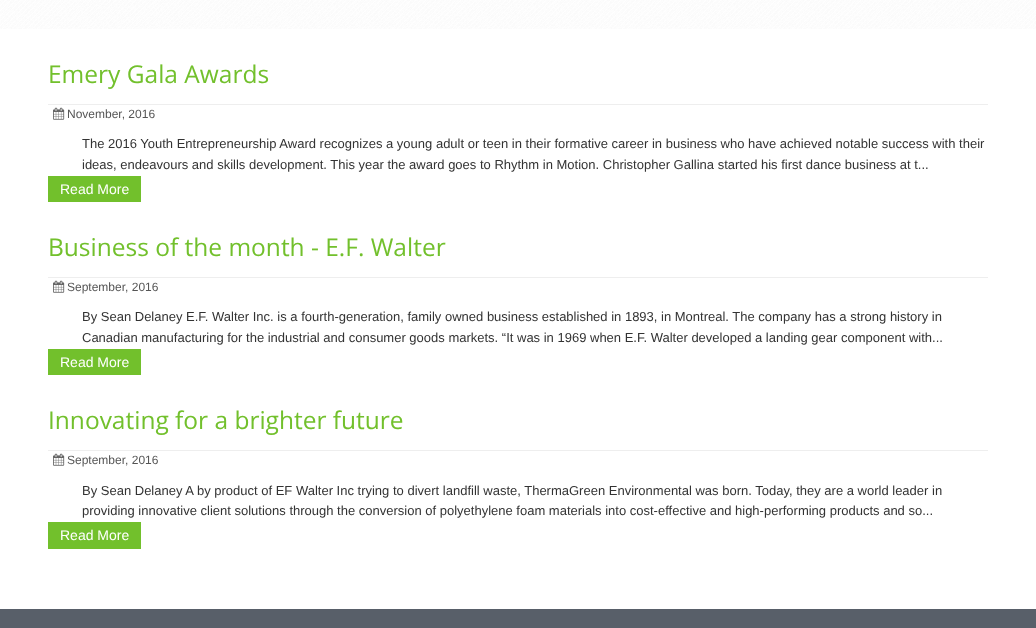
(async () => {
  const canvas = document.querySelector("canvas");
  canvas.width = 1036;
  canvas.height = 628;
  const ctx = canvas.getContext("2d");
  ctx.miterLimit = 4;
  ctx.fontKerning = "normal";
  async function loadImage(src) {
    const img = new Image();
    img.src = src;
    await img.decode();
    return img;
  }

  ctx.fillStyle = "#ffffff";
  ctx.fillRect(0, 0, 1036, 628);
  ctx.drawImage(await loadImage("img/1.png"), 0, 0, 1036, 29);
  ctx.fillStyle = "#eeeeee";
  ctx.fillRect(48, 104, 940, 1);
  ctx.drawImage(await loadImage("img/2.png"), 53, 107, 12, 13);
  ctx.fillStyle = "#72c02c";
  ctx.fillRect(48, 176, 93, 26);
  ctx.fillStyle = "#eeeeee";
  ctx.fillRect(48, 277, 940, 1);
  ctx.drawImage(await loadImage("img/2.png"), 53, 280, 12, 13);
  ctx.fillStyle = "#72c02c";
  ctx.fillRect(48, 349, 93, 26);
  ctx.fillStyle = "#eeeeee";
  ctx.fillRect(48, 450, 940, 1);
  ctx.drawImage(await loadImage("img/2.png"), 53, 453, 12, 13);
  ctx.fillStyle = "#72c02c";
  ctx.fillRect(48, 522, 93, 27);
  ctx.fillStyle = "#585f69";
  ctx.fillRect(0, 609, 1036, 19);
  ctx.font = "24.5px Open Sans";
  ctx.fillStyle = "#72c02c";
  ctx.fillText("Emery Gala Awards", 48, 83);
  ctx.font = "12px Liberation Sans";
  ctx.fillStyle = "#555555";
  ctx.fillText("November, 2016", 67, 118);
  ctx.font = "13px Liberation Sans";
  ctx.fillStyle = "#333333";
  ctx.fillText("The 2016 Youth Entrepreneurship Award recognizes a young adult or teen in their formative career in business who have achieved notable success with their", 82, 148);
  ctx.fillText("ideas, endeavours and skills development. This year the award goes to Rhythm in Motion. Christopher Gallina started his first dance business at t...", 82, 169);
  ctx.font = "14px Liberation Sans";
  ctx.fillStyle = "#ffffff";
  ctx.fillText("Read More", 60, 194);
  ctx.font = "24.5px Open Sans";
  ctx.fillStyle = "#72c02c";
  ctx.fillText("Business of the month - E.F. Walter", 48, 256);
  ctx.font = "12px Liberation Sans";
  ctx.fillStyle = "#555555";
  ctx.fillText("September, 2016", 67, 291);
  ctx.font = "13px Liberation Sans";
  ctx.fillStyle = "#333333";
  ctx.fillText("By Sean Delaney E.F. Walter Inc. is a fourth-generation, family owned business established in 1893, in Montreal. The company has a strong history in", 82, 321);
  ctx.fillText("Canadian manufacturing for the industrial and consumer goods markets. “It was in 1969 when E.F. Walter developed a landing gear component with...", 82, 342);
  ctx.font = "14px Liberation Sans";
  ctx.fillStyle = "#ffffff";
  ctx.fillText("Read More", 60, 367);
  ctx.font = "24.5px Open Sans";
  ctx.fillStyle = "#72c02c";
  ctx.fillText("Innovating for a brighter future", 48, 429);
  ctx.font = "12px Liberation Sans";
  ctx.fillStyle = "#555555";
  ctx.fillText("September, 2016", 67, 464);
  ctx.font = "13px Liberation Sans";
  ctx.fillStyle = "#333333";
  ctx.fillText("By Sean Delaney A by product of EF Walter Inc trying to divert landfill waste, ThermaGreen Environmental was born. Today, they are a world leader in", 82, 495);
  ctx.fillText("providing innovative client solutions through the conversion of polyethylene foam materials into cost-effective and high-performing products and so...", 82, 515);
  ctx.font = "14px Liberation Sans";
  ctx.fillStyle = "#ffffff";
  ctx.fillText("Read More", 60, 540);
})();
